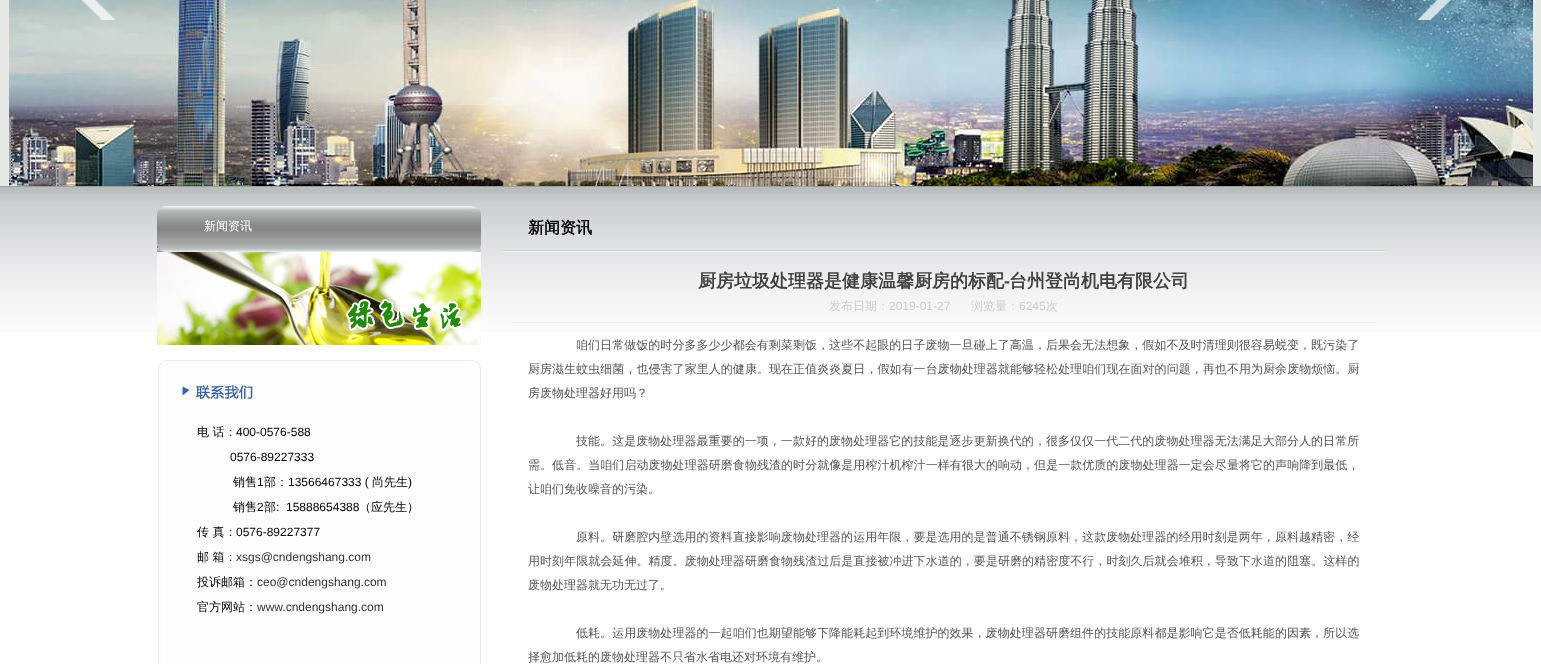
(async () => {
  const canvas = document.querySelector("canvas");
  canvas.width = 1541;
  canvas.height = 664;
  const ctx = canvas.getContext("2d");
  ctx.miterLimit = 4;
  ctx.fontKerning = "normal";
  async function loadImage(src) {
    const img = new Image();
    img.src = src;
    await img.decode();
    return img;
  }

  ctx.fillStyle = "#e7e9e6";
  ctx.fillRect(0, 0, 1541, 664);
  ctx.drawImage(await loadImage("img/1.png"), 9, 0, 1524, 186);
  ctx.drawImage(await loadImage("img/2.png"), 81, 0, 34, 20);
  ctx.drawImage(await loadImage("img/3.png"), 1417, 0, 34, 20);
  ctx.fillStyle = "#ffffff";
  ctx.fillRect(0, 332, 1541, 332);
  ctx.drawImage(await loadImage("img/4.png"), 0, 186, 1541, 146);
  ctx.drawImage(await loadImage("img/5.png"), 157, 206, 324, 139);
  ctx.drawImage(await loadImage("img/6.png"), 158, 360, 323, 304);
  for (const [x, y, w, h, color] of [
    [503, 251, 882, 1, "#fafbfb"],
    [503, 250, 882, 1, "#c9cccd"],
    [513, 322, 862, 1, "#eeeeee"],
  ]) {
    ctx.fillStyle = color;
    ctx.fillRect(x, y, w, h);
  }
  ctx.font = "500 12px WenQuanYi Zen Hei";
  ctx.fillStyle = "#ffffff";
  ctx.fillText("新闻资讯", 204, 230);
  ctx.fillStyle = "#000000";
  ctx.fillText("电 话：", 197, 436);
  ctx.font = "12px Liberation Sans";
  ctx.fillText("400-0576-588", 236, 436);
  ctx.fillText("0576-89227333", 230, 461);
  ctx.font = "500 12px WenQuanYi Zen Hei";
  ctx.fillText("销售", 233, 486);
  ctx.font = "12px Liberation Sans";
  ctx.fillText("1", 257, 486);
  ctx.font = "500 12px WenQuanYi Zen Hei";
  ctx.fillText("部：", 264, 486);
  ctx.font = "12px Liberation Sans";
  ctx.fillText("13566467333 (", 288, 486);
  ctx.font = "500 12px WenQuanYi Zen Hei";
  ctx.fillText("尚先生", 372, 486);
  ctx.font = "12px Liberation Sans";
  ctx.fillText(")", 408, 486);
  ctx.font = "500 12px WenQuanYi Zen Hei";
  ctx.fillText("销售", 233, 511);
  ctx.font = "12px Liberation Sans";
  ctx.fillText("2", 257, 511);
  ctx.font = "500 12px WenQuanYi Zen Hei";
  ctx.fillText("部", 264, 511);
  ctx.font = "12px Liberation Sans";
  ctx.fillText(":  15888654388", 276, 511);
  ctx.font = "500 12px WenQuanYi Zen Hei";
  ctx.fillText("（应先生）", 359, 511);
  ctx.fillText("传 真：", 197, 536);
  ctx.font = "12px Liberation Sans";
  ctx.fillText("0576-89227377", 236, 536);
  ctx.font = "500 12px WenQuanYi Zen Hei";
  ctx.fillText("邮 箱：", 197, 561);
  ctx.font = "12px Liberation Sans";
  ctx.fillStyle = "#333333";
  ctx.fillText("xsgs@cndengshang.com", 236, 561);
  ctx.font = "500 12px WenQuanYi Zen Hei";
  ctx.fillStyle = "#000000";
  ctx.fillText("投诉邮箱：", 197, 586);
  ctx.font = "12px Liberation Sans";
  ctx.fillStyle = "#333333";
  ctx.fillText("ceo@cndengshang.com", 257, 586);
  ctx.font = "500 12px WenQuanYi Zen Hei";
  ctx.fillStyle = "#000000";
  ctx.fillText("官方网站：", 197, 611);
  ctx.font = "12px Liberation Sans";
  ctx.fillStyle = "#333333";
  ctx.fillText("www.cndengshang.com", 257, 611);
  ctx.font = "bold 16px WenQuanYi Zen Hei";
  ctx.fillStyle = "#000000";
  ctx.fillText("新闻资讯", 528, 233);
  ctx.font = "bold 18px WenQuanYi Zen Hei";
  ctx.fillStyle = "#414141";
  ctx.fillText("厨房垃圾处理器是健康温馨厨房的标配", 698, 287);
  ctx.font = "bold 18px Liberation Sans";
  ctx.fillText("-", 1004, 287);
  ctx.font = "bold 18px WenQuanYi Zen Hei";
  ctx.fillText("台州登尚机电有限公司", 1009, 287);
  ctx.font = "500 12px WenQuanYi Zen Hei";
  ctx.fillStyle = "#cccccc";
  ctx.fillText("发布日期：", 829, 310);
  ctx.font = "12px Liberation Sans";
  ctx.fillText("2019-01-27", 889, 310);
  ctx.font = "500 12px WenQuanYi Zen Hei";
  ctx.fillText("浏览量：", 971, 310);
  ctx.font = "12px Liberation Sans";
  ctx.fillText("6245", 1019, 310);
  ctx.font = "500 12px WenQuanYi Zen Hei";
  ctx.fillText("次", 1046, 310);
  ctx.letterSpacing = "0.05px";
  ctx.fillStyle = "#555555";
  ctx.fillText("咱们日常做饭的时分多多少少都会有剩菜剩饭，这些不起眼的日子废物一旦碰上了高温，后果会无法想象，假如不及时清理则很容易蜕变，既污染了", 576, 349);
  ctx.fillText("厨房滋生蚊虫细菌，也侵害了家里人的健康。现在正值炎炎夏日，假如有一台废物处理器就能够轻松处理咱们现在面对的问题，再也不用为厨余废物烦恼。厨", 528, 373);
  ctx.letterSpacing = "0px";
  ctx.fillText("房废物处理器好用吗？", 528, 397);
  ctx.letterSpacing = "0.05px";
  ctx.fillText("技能。这是废物处理器最重要的一项，一款好的废物处理器它的技能是逐步更新换代的，很多仅仅一代二代的废物处理器无法满足大部分人的日常所", 576, 445);
  ctx.fillText("需。低音。当咱们启动废物处理器研磨食物残渣的时分就像是用榨汁机榨汁一样有很大的响动，但是一款优质的废物处理器一定会尽量将它的声响降到最低，", 528, 469);
  ctx.letterSpacing = "0px";
  ctx.fillText("让咱们免收噪音的污染。", 528, 493);
  ctx.letterSpacing = "0.05px";
  ctx.fillText("原料。研磨腔内壁选用的资料直接影响废物处理器的运用年限，要是选用的是普通不锈钢原料，这款废物处理器的经用时刻是两年，原料越精密，经", 576, 541);
  ctx.fillText("用时刻年限就会延伸。精度。废物处理器研磨食物残渣过后是直接被冲进下水道的，要是研磨的精密度不行，时刻久后就会堆积，导致下水道的阻塞。这样的", 528, 565);
  ctx.letterSpacing = "0px";
  ctx.fillText("废物处理器就无功无过了。", 528, 589);
  ctx.letterSpacing = "0.05px";
  ctx.fillText("低耗。运用废物处理器的一起咱们也期望能够下降能耗起到环境维护的效果，废物处理器研磨组件的技能原料都是影响它是否低耗能的因素，所以选", 576, 637);
  ctx.letterSpacing = "0px";
  ctx.fillText("择愈加低耗的废物处理器不只省水省电还对环境有维护。", 528, 661);
})();
